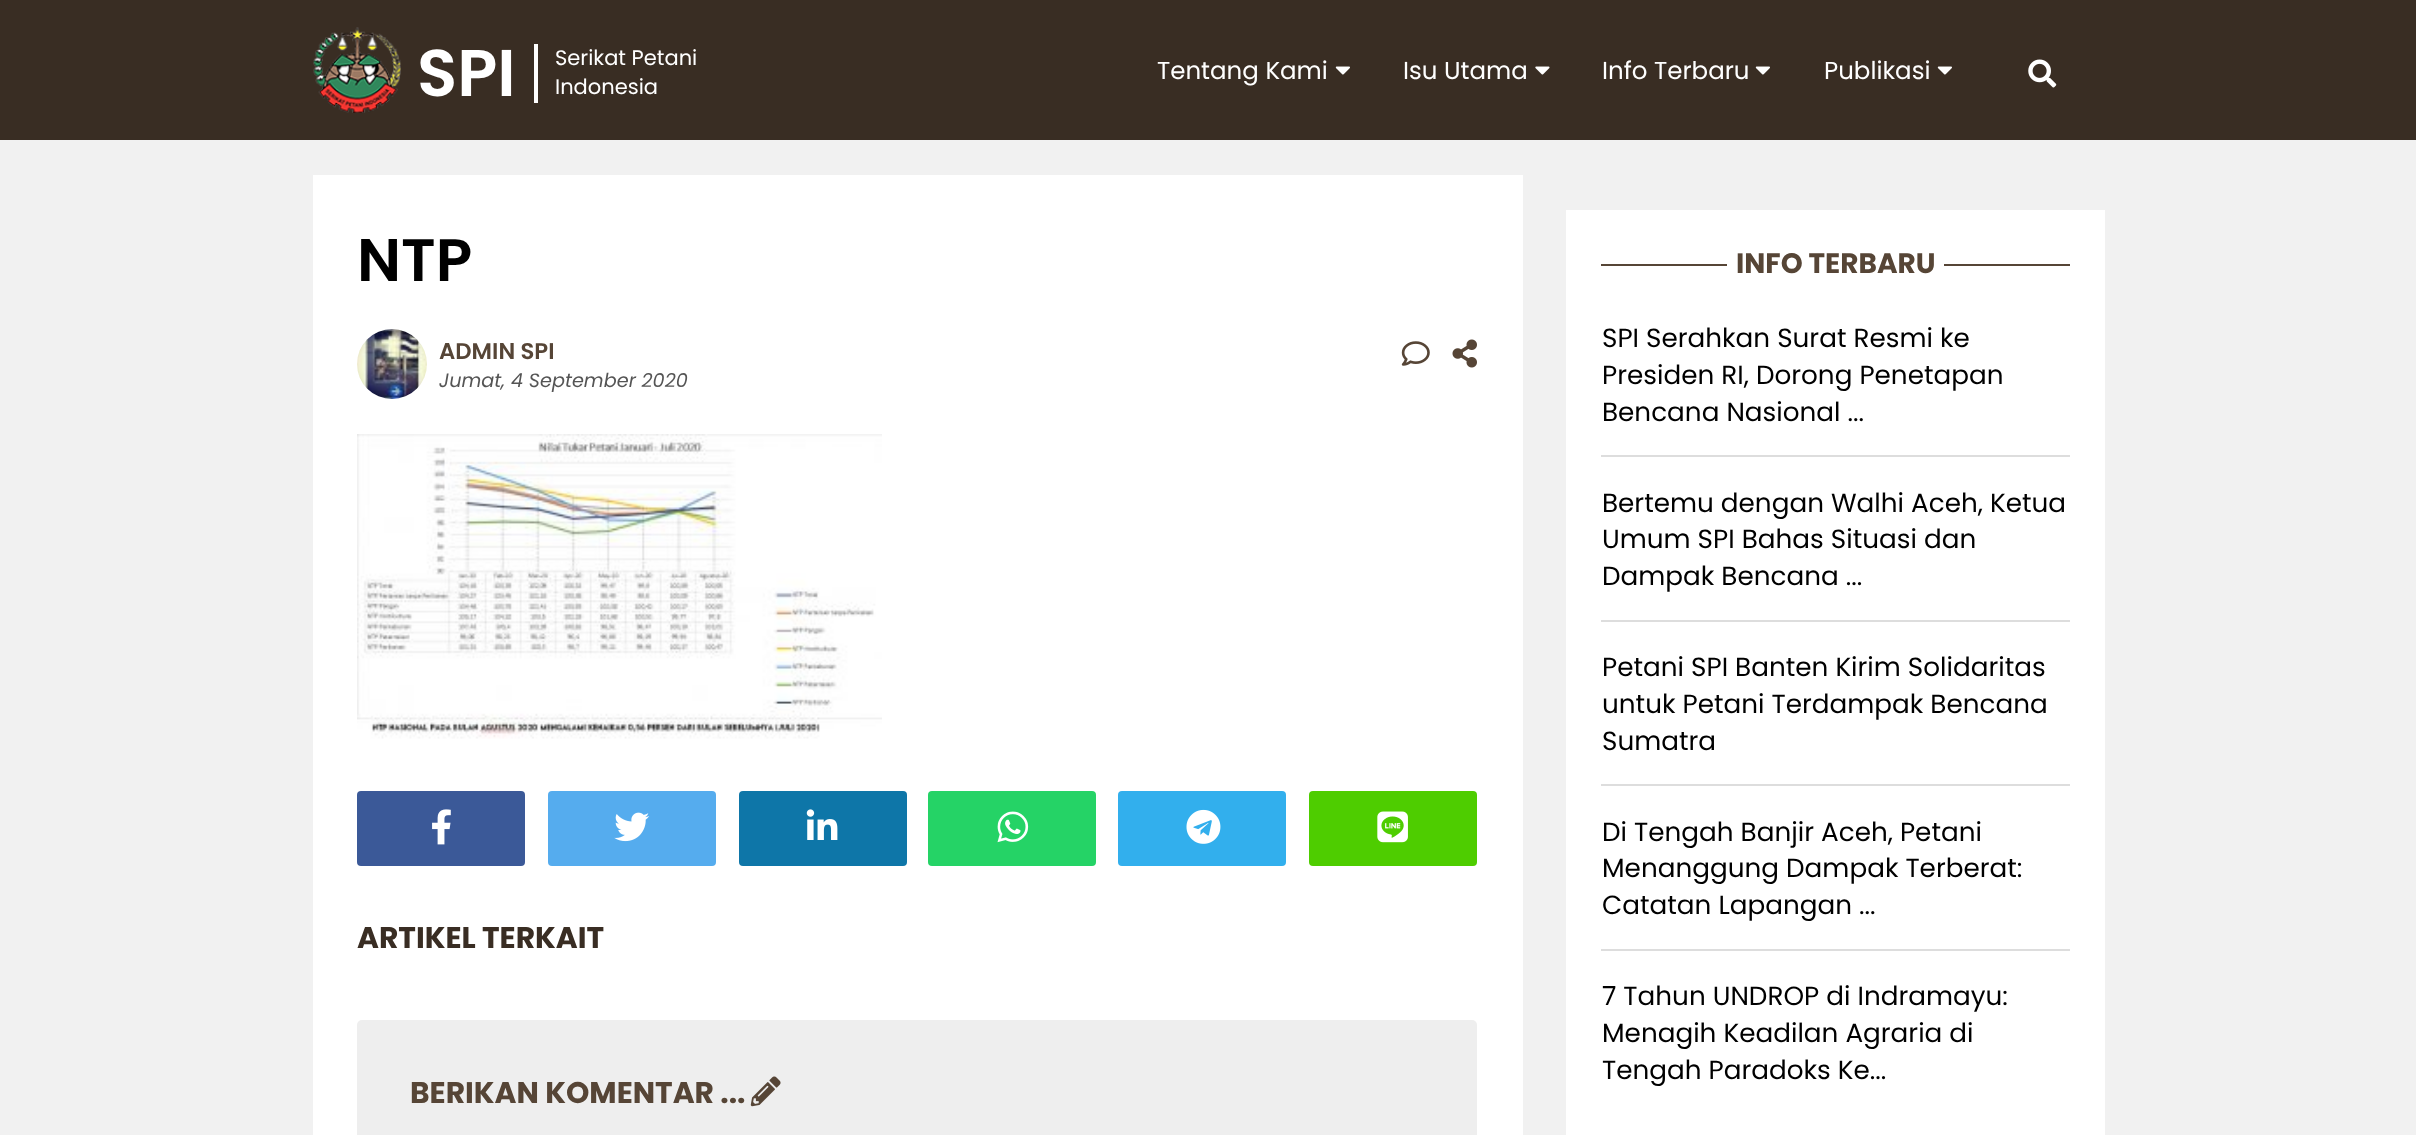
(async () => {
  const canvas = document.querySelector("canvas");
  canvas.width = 2416;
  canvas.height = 1135;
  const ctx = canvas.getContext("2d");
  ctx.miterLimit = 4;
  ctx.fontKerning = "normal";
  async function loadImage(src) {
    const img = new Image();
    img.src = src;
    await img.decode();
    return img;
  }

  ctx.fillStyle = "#f1f1f1";
  ctx.fillRect(0, 0, 2416, 1135);
  ctx.fillStyle = "#392d23";
  ctx.fillRect(0, 0, 2416, 140);
  ctx.drawImage(await loadImage("img/1.png"), 313, 27, 88, 86);
  ctx.fillStyle = "#ffffff";
  ctx.fillRect(534, 44, 4, 59);
  ctx.drawImage(await loadImage("img/2.png"), 1335, 66, 15, 9);
  ctx.drawImage(await loadImage("img/3.png"), 1535, 66, 15, 9);
  ctx.drawImage(await loadImage("img/2.png"), 1755, 66, 15, 9);
  ctx.drawImage(await loadImage("img/2.png"), 1937, 66, 15, 9);
  ctx.drawImage(await loadImage("img/4.png"), 2028, 59, 29, 29);
  ctx.fillRect(313, 175, 1210, 960);
  ctx.drawImage(await loadImage("img/5.png"), 357, 329, 70, 70);
  ctx.drawImage(await loadImage("img/6.png"), 1401, 341, 29, 25);
  ctx.drawImage(await loadImage("img/7.png"), 1452, 339, 25, 29);
  ctx.drawImage(await loadImage("img/8.png"), 357, 434, 525, 305);
  ctx.fillStyle = "#3b5998";
  ctx.beginPath();
  ctx.roundRect(357, 791, 168, 75, 4);
  ctx.fill();
  ctx.drawImage(await loadImage("img/9.png"), 432, 809, 19, 36);
  ctx.fillStyle = "#55acee";
  ctx.beginPath();
  ctx.roundRect(548, 791, 168, 75, 4);
  ctx.fill();
  ctx.drawImage(await loadImage("img/10.png"), 614, 812, 36, 30);
  ctx.fillStyle = "#0e76a8";
  ctx.beginPath();
  ctx.roundRect(739, 791, 168, 75, 4);
  ctx.fill();
  ctx.drawImage(await loadImage("img/11.png"), 806, 809, 32, 31);
  ctx.fillStyle = "#25d366";
  ctx.beginPath();
  ctx.roundRect(928, 791, 168, 75, 4);
  ctx.fill();
  ctx.drawImage(await loadImage("img/12.png"), 997, 811, 32, 32);
  ctx.fillStyle = "#32afed";
  ctx.beginPath();
  ctx.roundRect(1118, 791, 168, 75, 4);
  ctx.fill();
  ctx.drawImage(await loadImage("img/13.png"), 1186, 809, 35, 35);
  ctx.fillStyle = "#4ecd00";
  ctx.beginPath();
  ctx.roundRect(1309, 791, 168, 75, 4);
  ctx.fill();
  ctx.drawImage(await loadImage("img/14.png"), 1377, 811, 31, 32);
  ctx.fillStyle = "#eeeeee";
  ctx.beginPath();
  ctx.roundRect(357, 1020, 1120, 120, 5);
  ctx.fill();
  ctx.drawImage(await loadImage("img/15.png"), 750, 1076, 31, 31);
  for (const [x, y, w, h, color] of [
    [1566, 210, 539, 925, "#ffffff"],
    [1601, 264, 126, 2, "#564536"],
    [1944, 264, 126, 2, "#564536"],
    [1601, 455, 469, 2, "#dddddd"],
    [1601, 620, 469, 2, "#dddddd"],
    [1601, 784, 469, 2, "#dddddd"],
    [1601, 949, 469, 2, "#dddddd"],
  ]) {
    ctx.fillStyle = color;
    ctx.fillRect(x, y, w, h);
  }
  ctx.font = "600 66px Poppins";
  ctx.fillStyle = "#ffffff";
  ctx.fillText("SPI", 417, 96);
  ctx.font = "21px Poppins";
  ctx.fillText("Serikat Petani", 555, 65);
  ctx.fillText("Indonesia", 555, 94);
  ctx.font = "24.5px Poppins";
  for (const [text, x, y] of [
    ["Tentang Kami", 1157, 79],
    ["Isu Utama", 1403, 79],
    ["Info Terbaru", 1602, 79],
    ["Publikasi", 1824, 79],
  ]) {
    ctx.fillText(text, x, y);
  }
  ctx.font = "600 60px Poppins";
  ctx.fillStyle = "#000000";
  ctx.fillText("NTP", 357, 281);
  ctx.font = "600 22.75px Poppins";
  ctx.fillStyle = "#564536";
  ctx.fillText("ADMIN SPI", 439, 359);
  ctx.font = "italic 19.25px Poppins";
  ctx.fillStyle = "#555555";
  ctx.fillText("Jumat, 4 September 2020", 439, 387);
  ctx.font = "bold 29.75px Poppins";
  ctx.fillStyle = "#392d23";
  ctx.fillText("ARTIKEL TERKAIT", 357, 948);
  ctx.fillStyle = "#564536";
  ctx.fillText("BERIKAN KOMENTAR ...", 410, 1103);
  ctx.font = "bold 28px Poppins";
  ctx.fillText("INFO TERBARU", 1736, 273);
  ctx.font = "26.25px Poppins";
  ctx.fillStyle = "#000000";
  for (const [text, x, y] of [
    ["SPI Serahkan Surat Resmi ke", 1602, 347],
    ["Presiden RI, Dorong Penetapan", 1602, 384],
    ["Bencana Nasional ...", 1602, 421],
    ["Bertemu dengan Walhi Aceh, Ketua", 1602, 512],
    ["Umum SPI Bahas Situasi dan", 1602, 548],
    ["Dampak Bencana ...", 1602, 585],
    ["Petani SPI Banten Kirim Solidaritas", 1602, 676],
    ["untuk Petani Terdampak Bencana", 1602, 713],
    ["Sumatra", 1602, 750],
    ["Di Tengah Banjir Aceh, Petani", 1602, 841],
    ["Menanggung Dampak Terberat:", 1602, 877],
    ["Catatan Lapangan ...", 1602, 914],
    ["7 Tahun UNDROP di Indramayu:", 1602, 1005],
    ["Menagih Keadilan Agraria di", 1602, 1042],
    ["Tengah Paradoks Ke...", 1602, 1079],
  ]) {
    ctx.fillText(text, x, y);
  }
})();
